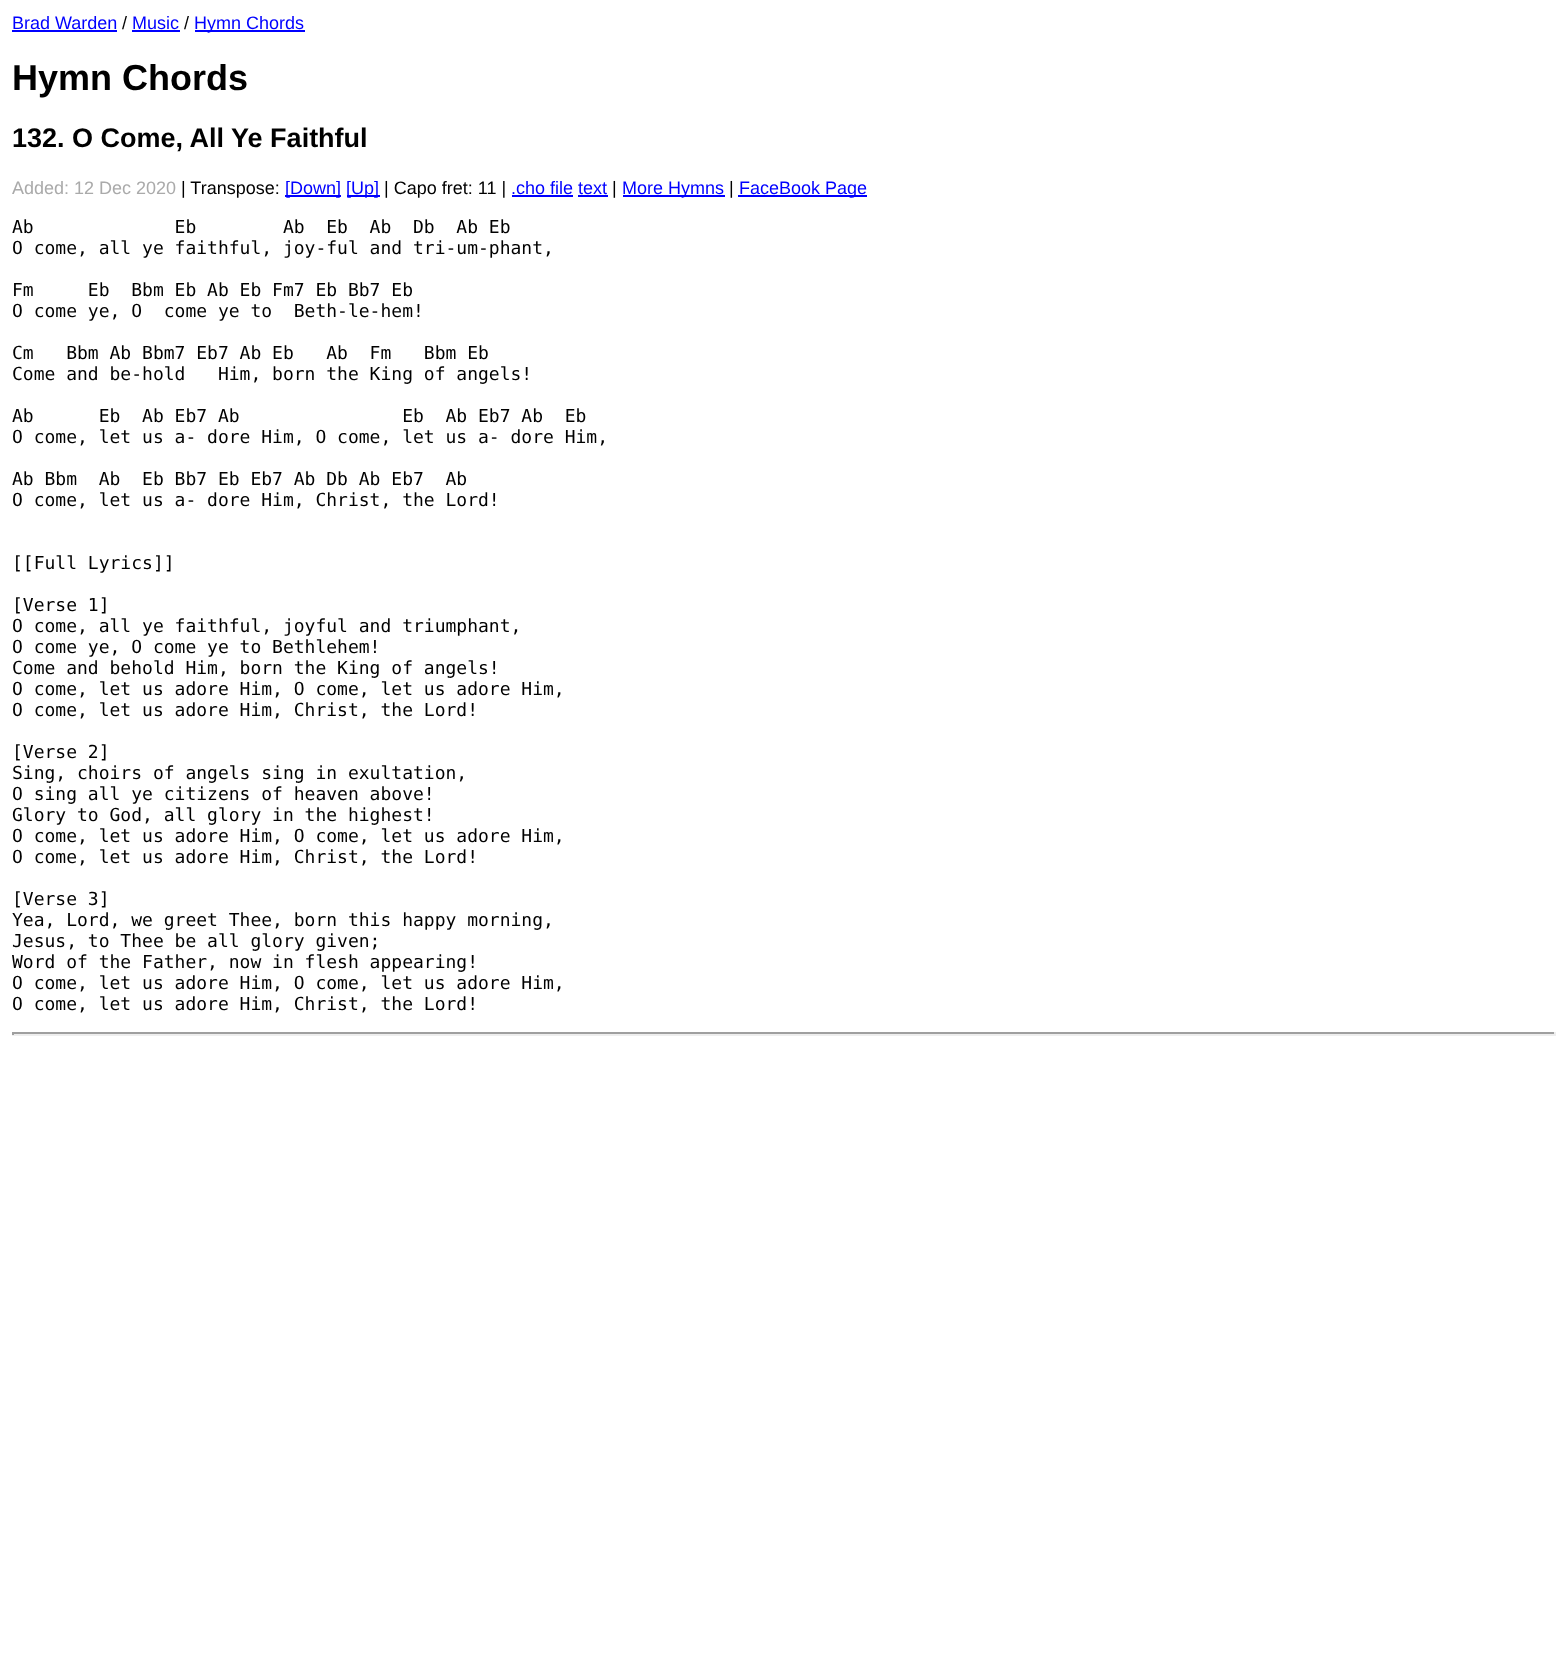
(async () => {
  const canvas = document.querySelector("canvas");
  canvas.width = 1567;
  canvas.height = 1657;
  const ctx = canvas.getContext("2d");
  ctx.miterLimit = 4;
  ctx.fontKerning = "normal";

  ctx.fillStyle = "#ffffff";
  ctx.fillRect(0, 0, 1567, 1657);
  for (const [x, y, w, h, color] of [
    [12, 30, 105, 2, "#0000ff"],
    [132, 30, 48, 2, "#0000ff"],
    [195, 30, 110, 2, "#0000ff"],
    [285, 195, 56, 2, "#0000ff"],
    [347, 195, 33, 2, "#0000ff"],
    [512, 195, 61, 2, "#0000ff"],
    [623, 195, 102, 2, "#0000ff"],
    [738, 195, 129, 2, "#0000ff"],
    [578, 195, 30, 2, "#0000ff"],
    [12, 1032, 1544, 2, "#9f9f9f"],
    [1554, 1032, 2, 3, "#eeeeee"],
    [12, 1034, 1544, 2, "#eeeeee"],
    [12, 1032, 2, 3, "#9f9f9f"],
  ]) {
    ctx.fillStyle = color;
    ctx.fillRect(x, y, w, h);
  }
  ctx.font = "18px Liberation Sans";
  ctx.fillStyle = "#0000ff";
  ctx.fillText("Brad Warden", 12, 29);
  ctx.fillStyle = "#000000";
  ctx.fillText("/", 122, 29);
  ctx.fillStyle = "#0000ff";
  ctx.fillText("Music", 132, 29);
  ctx.fillStyle = "#000000";
  ctx.fillText("/", 184, 29);
  ctx.fillStyle = "#0000ff";
  ctx.fillText("Hymn Chords", 194, 29);
  ctx.font = "bold 36px Liberation Sans";
  ctx.fillStyle = "#000000";
  ctx.fillText("Hymn Chords", 12, 90);
  ctx.font = "bold 27px Liberation Sans";
  ctx.fillText("132. O Come, All Ye Faithful", 12, 147);
  ctx.font = "18px Liberation Sans";
  ctx.fillStyle = "#aaaaaa";
  ctx.fillText("Added: 12 Dec 2020", 12, 194);
  ctx.fillStyle = "#000000";
  ctx.fillText("| Transpose:", 181, 194);
  ctx.fillStyle = "#0000ff";
  ctx.fillText("[Down]", 285, 194);
  ctx.fillText("[Up]", 346, 194);
  ctx.fillStyle = "#000000";
  ctx.fillText("| Capo fret: 11 |", 384, 194);
  ctx.fillStyle = "#0000ff";
  ctx.fillText(".cho file text", 511, 194);
  ctx.fillStyle = "#000000";
  ctx.fillText("|", 612, 194);
  ctx.fillStyle = "#0000ff";
  ctx.fillText("More Hymns", 622, 194);
  ctx.fillStyle = "#000000";
  ctx.fillText("|", 729, 194);
  ctx.fillStyle = "#0000ff";
  ctx.fillText("FaceBook Page", 739, 194);
  ctx.font = "18px DejaVu Sans Mono";
  ctx.fillStyle = "#000000";
  for (const [text, x, y] of [
    ["Ab             Eb        Ab  Eb  Ab  Db  Ab Eb", 12, 233],
    ["O come, all ye faithful, joy-ful and tri-um-phant,", 12, 254],
    ["Fm     Eb  Bbm Eb Ab Eb Fm7 Eb Bb7 Eb", 12, 296],
    ["O come ye, O  come ye to  Beth-le-hem!", 12, 317],
    ["Cm   Bbm Ab Bbm7 Eb7 Ab Eb   Ab  Fm   Bbm Eb", 12, 359],
    ["Come and be-hold   Him, born the King of angels!", 12, 380],
    ["Ab      Eb  Ab Eb7 Ab               Eb  Ab Eb7 Ab  Eb", 12, 422],
    ["O come, let us a- dore Him, O come, let us a- dore Him,", 12, 443],
    ["Ab Bbm  Ab  Eb Bb7 Eb Eb7 Ab Db Ab Eb7  Ab", 12, 485],
    ["O come, let us a- dore Him, Christ, the Lord!", 12, 506],
    ["[[Full Lyrics]]", 12, 569],
    ["[Verse 1]", 12, 611],
    ["O come, all ye faithful, joyful and triumphant,", 12, 632],
    ["O come ye, O come ye to Bethlehem!", 12, 653],
    ["Come and behold Him, born the King of angels!", 12, 674],
    ["O come, let us adore Him, O come, let us adore Him,", 12, 695],
    ["O come, let us adore Him, Christ, the Lord!", 12, 716],
    ["[Verse 2]", 12, 758],
    ["Sing, choirs of angels sing in exultation,", 12, 779],
    ["O sing all ye citizens of heaven above!", 12, 800],
    ["Glory to God, all glory in the highest!", 12, 821],
    ["O come, let us adore Him, O come, let us adore Him,", 12, 842],
    ["O come, let us adore Him, Christ, the Lord!", 12, 863],
    ["[Verse 3]", 12, 905],
    ["Yea, Lord, we greet Thee, born this happy morning,", 12, 926],
    ["Jesus, to Thee be all glory given;", 12, 947],
    ["Word of the Father, now in flesh appearing!", 12, 968],
    ["O come, let us adore Him, O come, let us adore Him,", 12, 989],
    ["O come, let us adore Him, Christ, the Lord!", 12, 1010],
  ]) {
    ctx.fillText(text, x, y);
  }
})();
